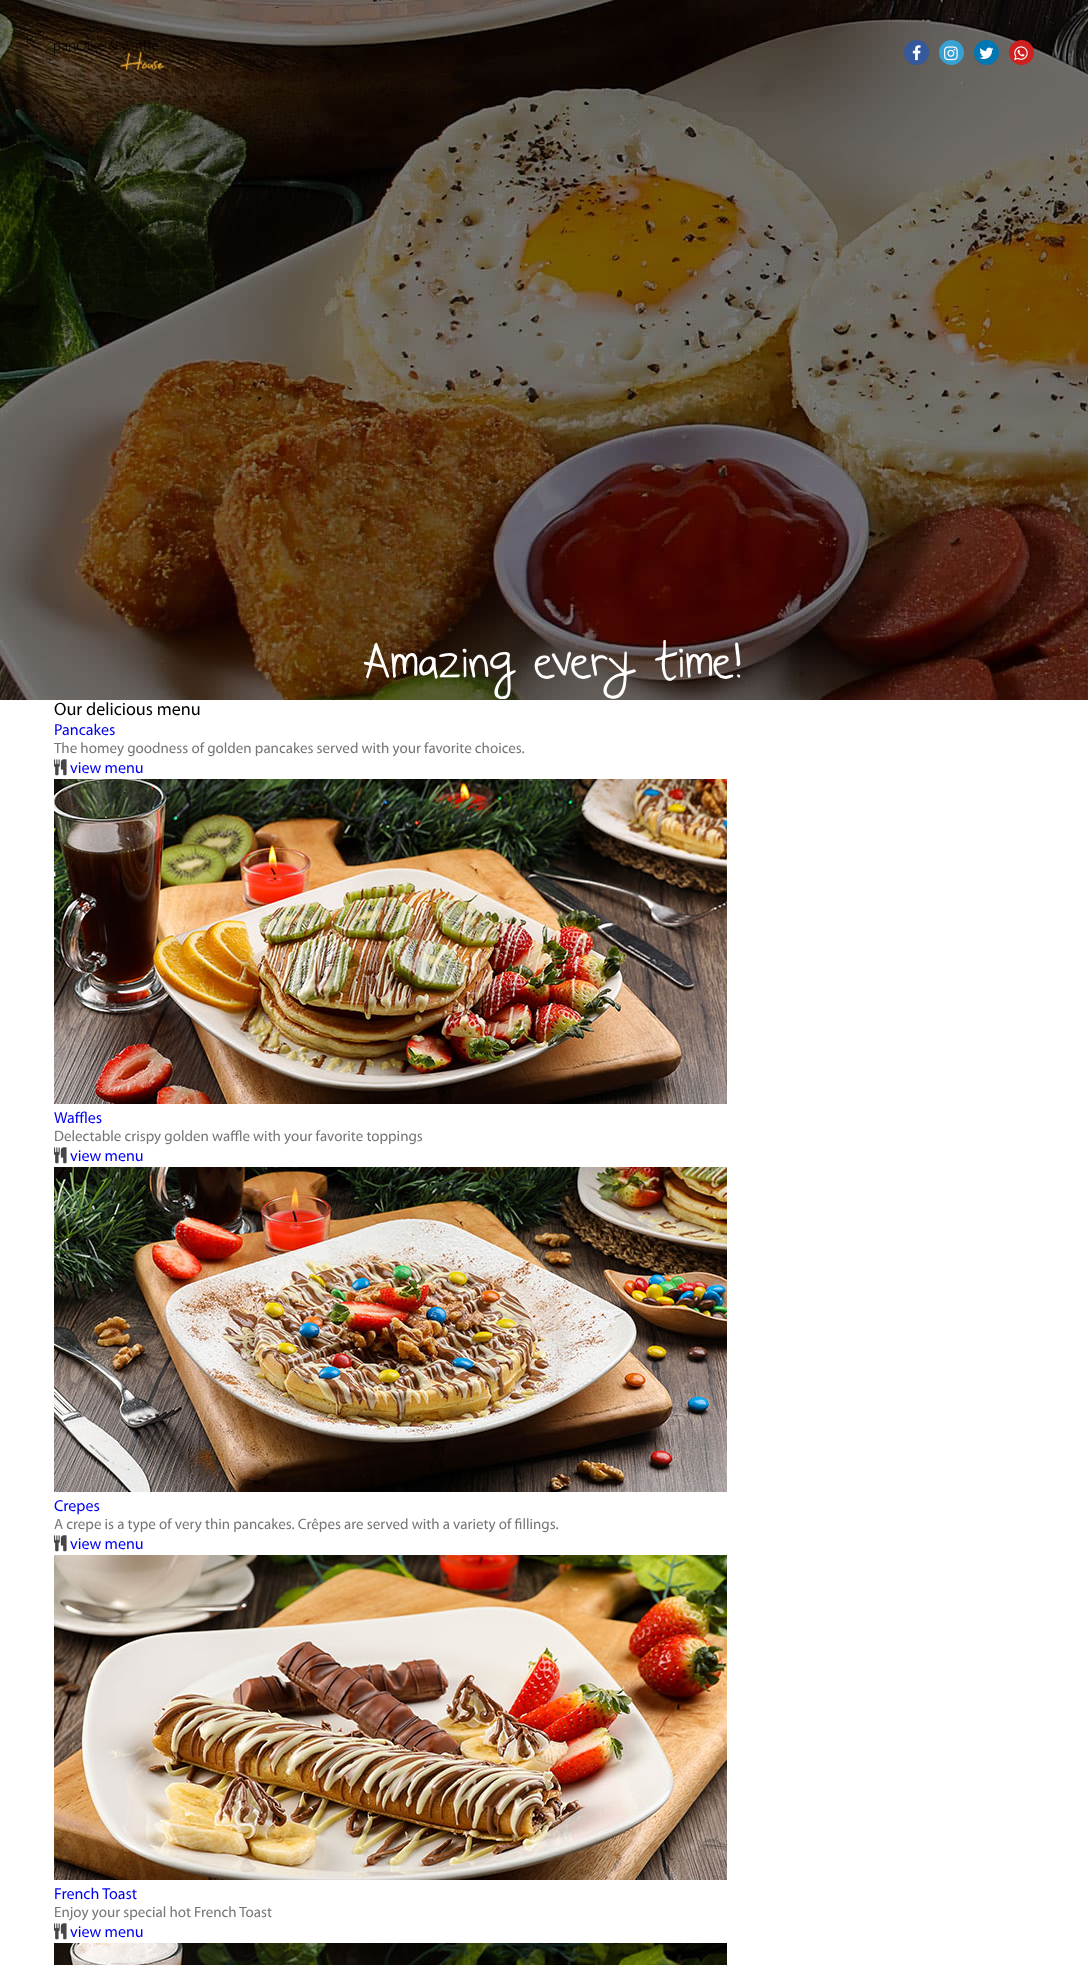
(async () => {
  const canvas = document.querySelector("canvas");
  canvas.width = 1088;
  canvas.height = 1965;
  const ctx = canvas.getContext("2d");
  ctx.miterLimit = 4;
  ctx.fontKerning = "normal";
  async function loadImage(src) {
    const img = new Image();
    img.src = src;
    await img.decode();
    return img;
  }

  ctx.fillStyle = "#ffffff";
  ctx.fillRect(0, 0, 1088, 1965);
  ctx.drawImage(await loadImage("img/6.png"), 0, 0, 1088, 700);
  ctx.drawImage(await loadImage("img/1.png"), 54, 40, 111, 30);
  ctx.fillStyle = "#34599c";
  ctx.beginPath();
  ctx.arc(916.5, 52.5, 12.5, 0, Math.PI * 2);
  ctx.fill();
  ctx.drawImage(await loadImage("img/2.png"), 912, 45, 9, 16);
  ctx.fillStyle = "#38a1d3";
  ctx.beginPath();
  ctx.arc(951.5, 52.5, 12.5, 0, Math.PI * 2);
  ctx.fill();
  ctx.drawImage(await loadImage("img/3.png"), 944, 46, 14, 15);
  ctx.fillStyle = "#0077b5";
  ctx.beginPath();
  ctx.arc(986.5, 52.5, 12.5, 0, Math.PI * 2);
  ctx.fill();
  ctx.drawImage(await loadImage("img/4.png"), 979, 47, 15, 12);
  ctx.fillStyle = "#cd201f";
  ctx.beginPath();
  ctx.arc(1021.5, 52.5, 12.5, 0, Math.PI * 2);
  ctx.fill();
  ctx.drawImage(await loadImage("img/5.png"), 1014, 46, 14, 15);
  ctx.drawImage(await loadImage("img/7.png"), 54, 759, 13, 17);
  ctx.drawImage(await loadImage("img/8.png"), 54, 779, 673, 325);
  ctx.drawImage(await loadImage("img/7.png"), 54, 1147, 13, 17);
  ctx.drawImage(await loadImage("img/9.png"), 54, 1167, 673, 325);
  ctx.drawImage(await loadImage("img/7.png"), 54, 1535, 13, 17);
  ctx.drawImage(await loadImage("img/10.png"), 54, 1555, 673, 325);
  ctx.drawImage(await loadImage("img/7.png"), 54, 1923, 13, 17);
  ctx.drawImage(await loadImage("img/11.png"), 54, 1943, 673, 22);
  ctx.font = "44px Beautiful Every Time";
  ctx.fillStyle = "#ffffff";
  ctx.fillText("Amazing every time!", 364, 677);
  ctx.font = "18px Myriad";
  ctx.fillStyle = "#000000";
  ctx.fillText("Our delicious menu", 54, 715);
  ctx.font = "16px Myriad";
  ctx.fillStyle = "#0000ee";
  ctx.fillText("Pancakes", 54, 735);
  ctx.font = "15px Myriad";
  ctx.fillStyle = "#757575";
  ctx.fillText("The homey goodness of golden pancakes served with your favorite choices.", 54, 753);
  ctx.font = "16px Myriad";
  ctx.fillStyle = "#0000ee";
  ctx.fillText("view menu", 70, 773);
  ctx.fillText("Waffles", 54, 1123);
  ctx.font = "15px Myriad";
  ctx.fillStyle = "#757575";
  ctx.fillText("Delectable crispy golden waffle with your favorite toppings", 54, 1141);
  ctx.font = "16px Myriad";
  ctx.fillStyle = "#0000ee";
  ctx.fillText("view menu", 70, 1161);
  ctx.fillText("Crepes", 54, 1511);
  ctx.font = "15px Myriad";
  ctx.fillStyle = "#757575";
  ctx.fillText("A crepe is a type of very thin pancakes. Crêpes are served with a variety of fillings.", 54, 1529);
  ctx.font = "16px Myriad";
  ctx.fillStyle = "#0000ee";
  ctx.fillText("view menu", 70, 1549);
  ctx.fillText("French Toast", 54, 1899);
  ctx.font = "15px Myriad";
  ctx.fillStyle = "#757575";
  ctx.fillText("Enjoy your special hot French Toast", 54, 1917);
  ctx.font = "16px Myriad";
  ctx.fillStyle = "#0000ee";
  ctx.fillText("view menu", 70, 1937);
})();
